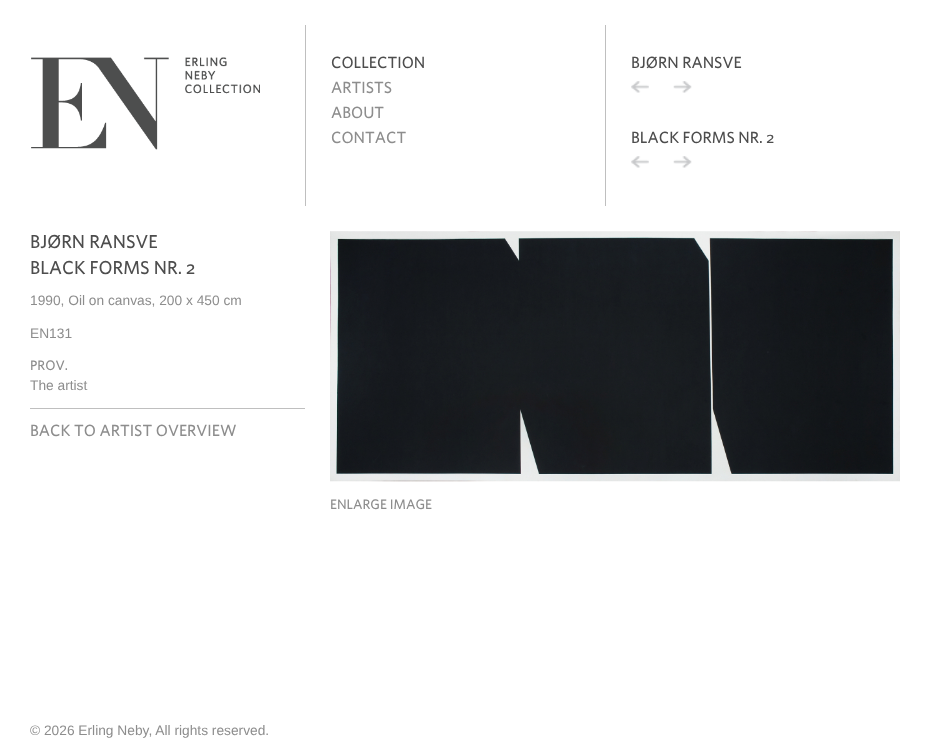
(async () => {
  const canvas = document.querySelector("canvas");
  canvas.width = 935;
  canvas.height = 751;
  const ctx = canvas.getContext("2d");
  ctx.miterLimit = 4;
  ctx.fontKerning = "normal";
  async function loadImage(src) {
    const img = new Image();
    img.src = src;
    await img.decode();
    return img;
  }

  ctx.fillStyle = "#ffffff";
  ctx.fillRect(0, 0, 935, 751);
  ctx.drawImage(await loadImage("img/1.png"), 31, 57, 229, 93);
  ctx.fillStyle = "#bfbfbf";
  ctx.fillRect(305, 25, 1, 181);
  ctx.fillRect(605, 25, 1, 181);
  ctx.drawImage(await loadImage("img/2.png"), 631, 81, 18, 12);
  ctx.drawImage(await loadImage("img/3.png"), 673, 81, 19, 12);
  ctx.drawImage(await loadImage("img/2.png"), 631, 156, 18, 12);
  ctx.drawImage(await loadImage("img/3.png"), 673, 156, 19, 12);
  ctx.fillRect(30, 408, 275, 1);
  ctx.drawImage(await loadImage("img/4.png"), 330, 231, 570, 251);
  ctx.font = "500 16.25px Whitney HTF";
  ctx.fillStyle = "#4d4d4d";
  ctx.fillText("COLLECTION", 331, 68);
  ctx.fillStyle = "#8d8d8d";
  for (const [text, x, y] of [
    ["ARTISTS", 331, 93],
    ["ABOUT", 331, 118],
    ["CONTACT", 331, 143],
  ]) {
    ctx.fillText(text, x, y);
  }
  ctx.fillStyle = "#4d4d4d";
  ctx.fillText("BJØRN RANSVE", 631, 68);
  ctx.fillText("BLACK FORMS NR. 2", 631, 143);
  ctx.font = "500 18.75px Whitney HTF";
  ctx.fillText("BJØRN RANSVE", 30, 248);
  ctx.fillText("BLACK FORMS NR. 2", 30, 274);
  ctx.font = "13.75px Liberation Sans";
  ctx.fillStyle = "#8d8d8d";
  ctx.fillText("1990, Oil on canvas, 200 x 450 cm", 30, 305);
  ctx.fillText("EN131", 30, 338);
  ctx.font = "500 13.75px Whitney HTF";
  ctx.fillText("PROV.", 30, 370);
  ctx.font = "13.75px Liberation Sans";
  ctx.fillText("The artist", 30, 390);
  ctx.font = "500 16.25px Whitney HTF";
  ctx.fillText("BACK TO ARTIST OVERVIEW", 30, 436);
  ctx.font = "500 13.75px Whitney HTF";
  ctx.fillText("ENLARGE IMAGE", 330, 509);
  ctx.font = "13.75px Liberation Sans";
  ctx.fillText("© 2026 Erling Neby, All rights reserved.", 30, 735);
})();
